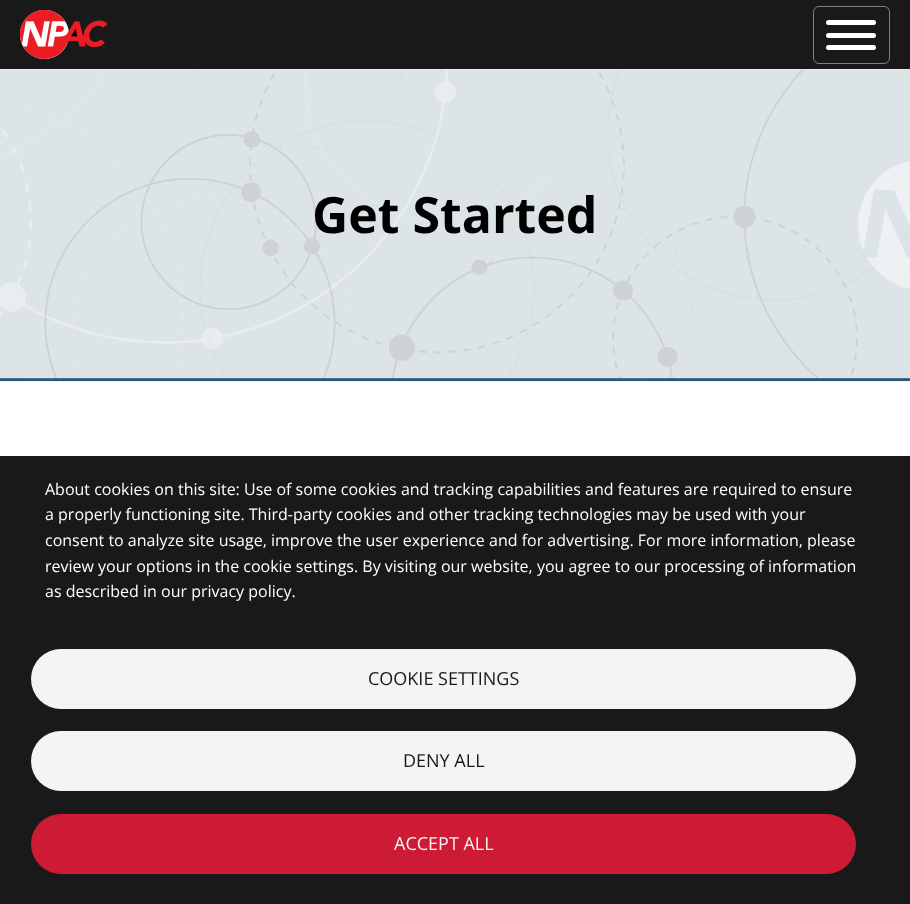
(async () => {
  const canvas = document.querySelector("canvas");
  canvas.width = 910;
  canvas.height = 904;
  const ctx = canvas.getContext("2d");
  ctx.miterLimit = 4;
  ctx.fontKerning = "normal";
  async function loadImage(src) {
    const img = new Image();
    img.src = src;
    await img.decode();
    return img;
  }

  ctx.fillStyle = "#ffffff";
  ctx.fillRect(0, 0, 910, 904);
  ctx.fillStyle = "#191919";
  ctx.fillRect(0, 0, 910, 69);
  ctx.drawImage(await loadImage("img/1.png"), 20, 10, 88, 49);
  ctx.beginPath();
  ctx.roundRect(813.5, 6.5, 76, 57, 5.5);
  ctx.strokeStyle = "#808080";
  ctx.stroke();
  ctx.fillStyle = "#ffffff";
  ctx.beginPath();
  ctx.roundRect(826, 33, 50, 5, 2.5);
  ctx.fill();
  ctx.beginPath();
  ctx.roundRect(826, 20, 50, 5, 2.5);
  ctx.fill();
  ctx.beginPath();
  ctx.roundRect(826, 45, 50, 5, 2.5);
  ctx.fill();
  ctx.drawImage(await loadImage("img/2.png"), 0, 69, 910, 313);
  ctx.fillStyle = "#191919";
  ctx.fillRect(0, 456, 910, 448);
  ctx.fillStyle = "#f4f4f4";
  ctx.beginPath();
  ctx.roundRect(31, 649, 825, 60, 30);
  ctx.fill();
  ctx.beginPath();
  ctx.roundRect(31, 731, 825, 60, 30);
  ctx.fill();
  ctx.fillStyle = "#ce1b35";
  ctx.beginPath();
  ctx.roundRect(31, 814, 825, 60, 30);
  ctx.fill();
  ctx.font = "bold 50px Open Sans";
  ctx.fillStyle = "#000000";
  ctx.fillText("Get Started", 312, 233);
  ctx.font = "16px Open Sans";
  ctx.fillStyle = "#ffffff";
  for (const [text, x, y] of [
    ["About cookies on this site: Use of some cookies and tracking capabilities and features are required to ensure", 45, 495],
    ["a properly functioning site. Third-party cookies and other tracking technologies may be used with your", 45, 520],
    ["consent to analyze site usage, improve the user experience and for advertising. For more information, please", 45, 546],
    ["review your options in the cookie settings. By visiting our website, you agree to our processing of information", 45, 572],
    ["as described in our privacy policy.", 45, 597],
  ]) {
    ctx.fillText(text, x, y);
  }
  ctx.font = "18px Open Sans";
  ctx.fillStyle = "#191919";
  ctx.fillText("COOKIE SETTINGS", 368, 685);
  ctx.fillText("DENY ALL", 403, 767);
  ctx.fillStyle = "#f4f4f4";
  ctx.fillText("ACCEPT ALL", 394, 850);
})();
